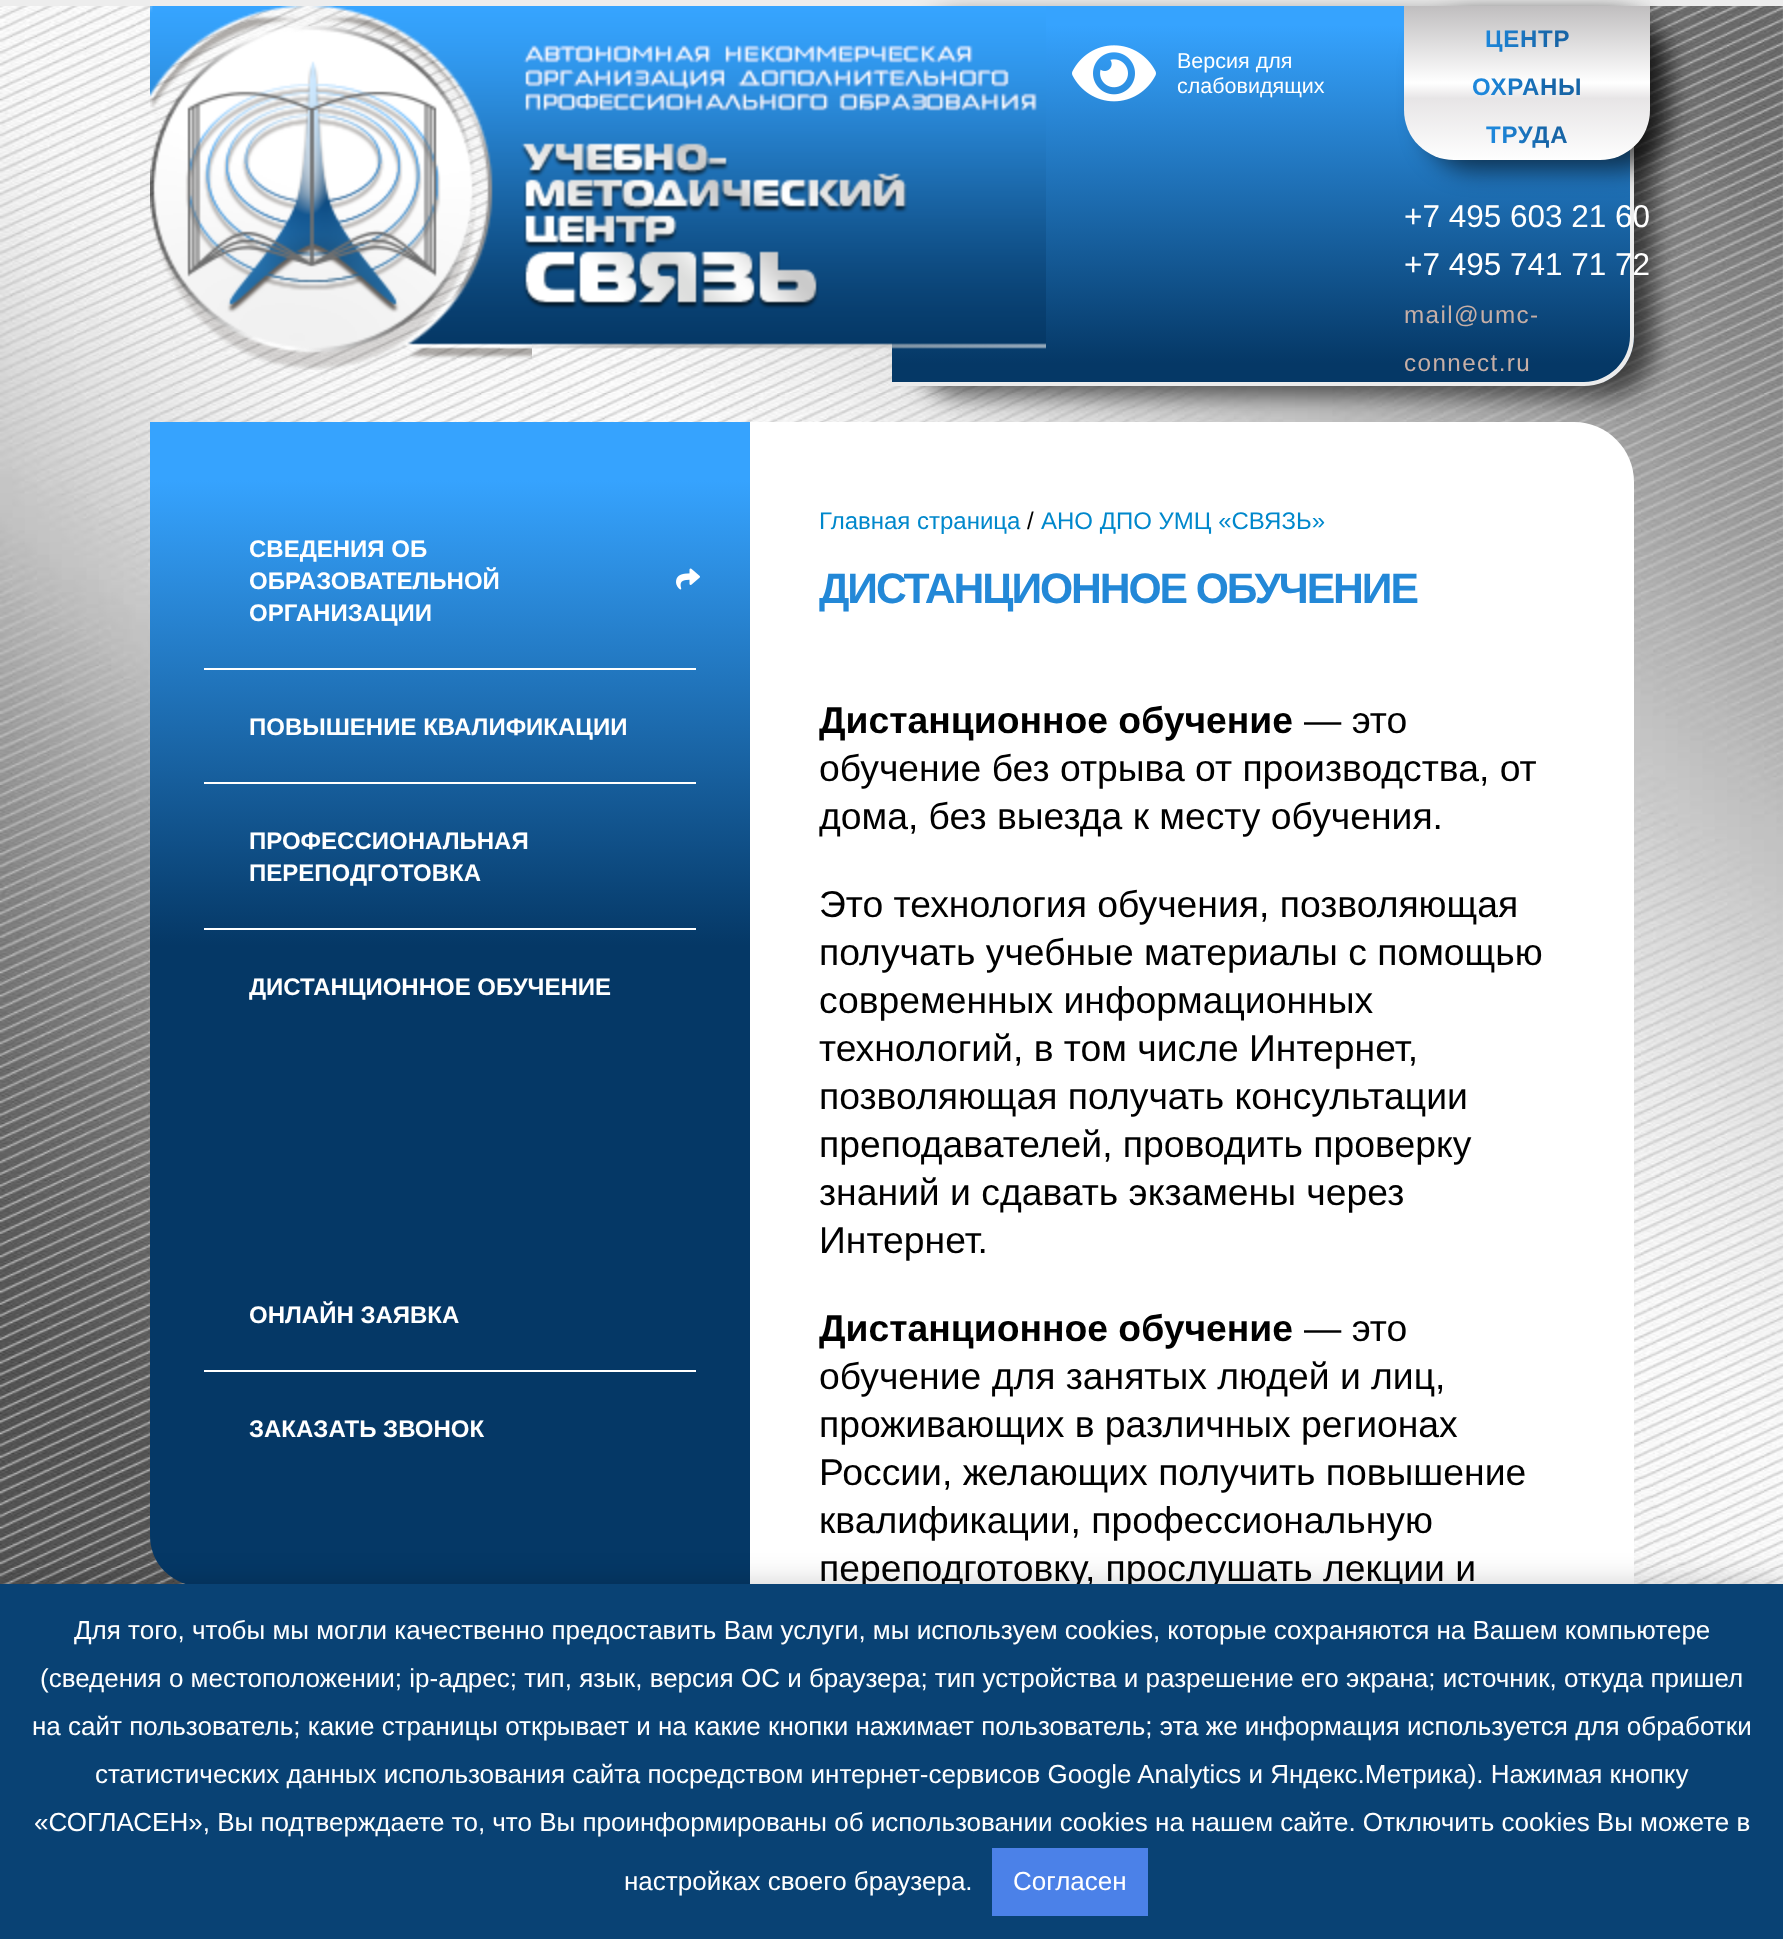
(async () => {
  const canvas = document.querySelector("canvas");
  canvas.width = 1783;
  canvas.height = 1939;
  const ctx = canvas.getContext("2d");
  ctx.miterLimit = 4;
  ctx.fontKerning = "normal";
  async function loadImage(src) {
    const img = new Image();
    img.src = src;
    await img.decode();
    return img;
  }
  let gradient, path;

  ctx.fillStyle = "#ffffff";
  ctx.fillRect(0, 0, 1783, 1939);
  ctx.drawImage(await loadImage("img/1.png"), 0, 6, 1783, 1578);
  ctx.fillStyle = "#ededed";
  ctx.fillRect(0, 0, 1783, 6);
  ctx.drawImage(await loadImage("img/2.png"), 150, 6, 382, 364);
  ctx.fillStyle = "rgba(0, 0, 0, 0.6)";
  ctx.filter = "blur(12px)";
  ctx.beginPath();
  ctx.roundRect(912, 16, 742, 380, 50);
  ctx.fill();
  ctx.filter = "none";
  ctx.save();
  ctx.beginPath();
  ctx.roundRect(892, 6, 742, 380, [0, 0, 50, 0]);
  ctx.clip();
  gradient = ctx.createLinearGradient(1261, 6, 1261, 382);
  gradient.addColorStop(0.05, "#36a3fe");
  gradient.addColorStop(0.95, "#053866");
  ctx.fillStyle = gradient;
  ctx.fillRect(892, 6, 742, 376);
  ctx.restore();
  ctx.fillStyle = "#ececec";
  path = new Path2D("M892 6H1634V336C1634 364 1612 386 1584 386H892ZM892 6H1630V336C1630 361 1609 382 1584 382H892Z");
  ctx.fill(path, "evenodd");
  ctx.drawImage(await loadImage("img/3.png"), 500, 6, 546, 343);
  ctx.drawImage(await loadImage("img/4.png"), 1072, 45, 84, 57);
  ctx.fillStyle = "rgba(0, 0, 0, 0.6)";
  ctx.filter = "blur(12px)";
  ctx.beginPath();
  ctx.roundRect(1424, 16, 246, 154, 50);
  ctx.fill();
  ctx.filter = "none";
  gradient = ctx.createLinearGradient(1527, 6, 1527, 160);
  gradient.addColorStop(0, "#c0bebf");
  gradient.addColorStop(0.5, "#ffffff");
  gradient.addColorStop(0.6, "#e7e5e6");
  gradient.addColorStop(1, "#fefefe");
  ctx.fillStyle = gradient;
  ctx.beginPath();
  ctx.roundRect(1404, 6, 246, 154, [0, 0, 50, 50]);
  ctx.fill();
  ctx.drawImage(await loadImage("img/5.png"), 0, 522, 1783, 1062);
  gradient = ctx.createLinearGradient(450, 422, 450, 1586);
  gradient.addColorStop(0.05, "#36a3fe");
  gradient.addColorStop(0.45, "#053866");
  ctx.fillStyle = gradient;
  ctx.beginPath();
  ctx.roundRect(150, 422, 600, 1164, [0, 0, 0, 50]);
  ctx.fill();
  ctx.drawImage(await loadImage("img/6.png"), 676, 568, 24, 22);
  for (const [x, y, w, h, color] of [
    [204, 668, 492, 2, "#ffffff"],
    [204, 782, 492, 2, "#ffffff"],
    [204, 928, 492, 2, "#ffffff"],
    [204, 1370, 492, 2, "#ffffff"],
  ]) {
    ctx.fillStyle = color;
    ctx.fillRect(x, y, w, h);
  }
  path = new Path2D("M750 422H1574C1607 422 1634 449 1634 482V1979C1634 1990 1625 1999 1614 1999H770C759 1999 750 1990 750 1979Z");
  ctx.fill(path);
  ctx.fillStyle = "rgba(0, 0, 0, 0.2)";
  ctx.filter = "blur(15px)";
  ctx.beginPath();
  ctx.rect(0, 1584, 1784, 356);
  ctx.fill();
  ctx.filter = "none";
  ctx.font = "21.5px Liberation Sans";
  ctx.fillStyle = "#ffffff";
  ctx.fillText("Версия для", 1177, 68);
  ctx.fillText("слабовидящих", 1177, 93);
  ctx.letterSpacing = "0.75px";
  ctx.font = "bold 24px Liberation Sans";
  gradient = ctx.createLinearGradient(1472, 63, 1583, 63);
  gradient.addColorStop(0.12, "#1d87db");
  gradient.addColorStop(0.73, "#1765a7");
  ctx.fillStyle = gradient;
  ctx.fillText("ЦЕНТР", 1485, 47);
  ctx.fillText("ОХРАНЫ", 1472, 95);
  gradient = ctx.createLinearGradient(1486, 135, 1569, 135);
  gradient.addColorStop(0.12, "#1d87db");
  gradient.addColorStop(0.73, "#1765a7");
  ctx.fillStyle = gradient;
  ctx.fillText("ТРУДА", 1486, 143);
  ctx.letterSpacing = "0px";
  ctx.font = "31.5px Liberation Sans";
  ctx.fillStyle = "#ffffff";
  ctx.fillText("+7 495 603 21 60", 1404, 227);
  ctx.fillText("+7 495 741 71 72", 1404, 275);
  ctx.letterSpacing = "1.4px";
  ctx.font = "24.25px Liberation Sans";
  ctx.fillStyle = "#c7afa6";
  ctx.fillText("mail@umc-", 1404, 323);
  ctx.fillText("connect.ru", 1404, 371);
  ctx.letterSpacing = "0px";
  ctx.font = "bold 24px Liberation Sans";
  ctx.fillStyle = "#ffffff";
  for (const [text, x, y] of [
    ["СВЕДЕНИЯ ОБ", 249, 557],
    ["ОБРАЗОВАТЕЛЬНОЙ", 249, 589],
    ["ОРГАНИЗАЦИИ", 249, 621],
    ["ПОВЫШЕНИЕ КВАЛИФИКАЦИИ", 249, 735],
    ["ПРОФЕССИОНАЛЬНАЯ", 249, 849],
    ["ПЕРЕПОДГОТОВКА", 249, 881],
    ["ДИСТАНЦИОННОЕ ОБУЧЕНИЕ", 249, 995],
    ["ОНЛАЙН ЗАЯВКА", 249, 1323],
    ["ЗАКАЗАТЬ ЗВОНОК", 249, 1437],
  ]) {
    ctx.fillText(text, x, y);
  }
  ctx.font = "24px Liberation Sans";
  ctx.fillStyle = "#0088cc";
  ctx.fillText("Главная страница", 819, 529);
  ctx.fillStyle = "#000000";
  ctx.fillText("/", 1027, 529);
  ctx.fillStyle = "#0088cc";
  ctx.fillText("АНО ДПО УМЦ «СВЯЗЬ»", 1041, 529);
  ctx.letterSpacing = "-2.1px";
  ctx.font = "bold 42.7px Liberation Sans";
  ctx.fillStyle = "#2388d7";
  ctx.fillText("ДИСТАНЦИОННОЕ ОБУЧЕНИЕ", 819, 603);
  ctx.letterSpacing = "0px";
  ctx.font = "bold 37.3px Liberation Sans";
  ctx.fillStyle = "#000000";
  ctx.fillText("Дистанционное обучение", 819, 733);
  ctx.font = "37.3px Liberation Sans";
  for (const [text, x, y] of [
    ["— это", 1304, 733],
    ["обучение без отрыва от производства, от", 819, 781],
    ["дома, без выезда к месту обучения.", 819, 829],
    ["Это технология обучения, позволяющая", 819, 917],
    ["получать учебные материалы с помощью", 819, 965],
    ["современных информационных", 819, 1013],
    ["технологий, в том числе Интернет,", 819, 1061],
    ["позволяющая получать консультации", 819, 1109],
    ["преподавателей, проводить проверку", 819, 1157],
    ["знаний и сдавать экзамены через", 819, 1205],
    ["Интернет.", 819, 1253],
  ]) {
    ctx.fillText(text, x, y);
  }
  ctx.font = "bold 37.3px Liberation Sans";
  ctx.fillText("Дистанционное обучение", 819, 1341);
  ctx.font = "37.3px Liberation Sans";
  for (const [text, x, y] of [
    ["— это", 1304, 1341],
    ["обучение для занятых людей и лиц,", 819, 1389],
    ["проживающих в различных регионах", 819, 1437],
    ["России, желающих получить повышение", 819, 1485],
    ["квалификации, профессиональную", 819, 1533],
    ["переподготовку, прослушать лекции и", 819, 1581],
  ]) {
    ctx.fillText(text, x, y);
  }
  ctx.fillStyle = "#094274";
  ctx.fillRect(0, 1584, 1783, 355);
  ctx.font = "26px Liberation Sans";
  ctx.fillStyle = "#ffffff";
  for (const [text, x, y] of [
    ["Для того, чтобы мы могли качественно предоставить Вам услуги, мы используем cookies, которые сохраняются на Вашем компьютере", 74, 1639],
    ["(сведения о местоположении; ip-адрес; тип, язык, версия ОС и браузера; тип устройства и разрешение его экрана; источник, откуда пришел", 40, 1687],
    ["на сайт пользователь; какие страницы открывает и на какие кнопки нажимает пользователь; эта же информация используется для обработки", 32, 1735],
    ["статистических данных использования сайта посредством интернет-сервисов Google Analytics и Яндекс.Метрика). Нажимая кнопку", 95, 1783],
    ["«СОГЛАСЕН», Вы подтверждаете то, что Вы проинформированы об использовании cookies на нашем сайте. Отключить cookies Вы можете в", 34, 1831],
    ["настройках своего браузера.", 624, 1890],
  ]) {
    ctx.fillText(text, x, y);
  }
  ctx.fillStyle = "#4b81e8";
  ctx.fillRect(992, 1848, 156, 68);
  ctx.fillStyle = "#ffffff";
  ctx.fillText("Согласен", 1013, 1890);
})();
